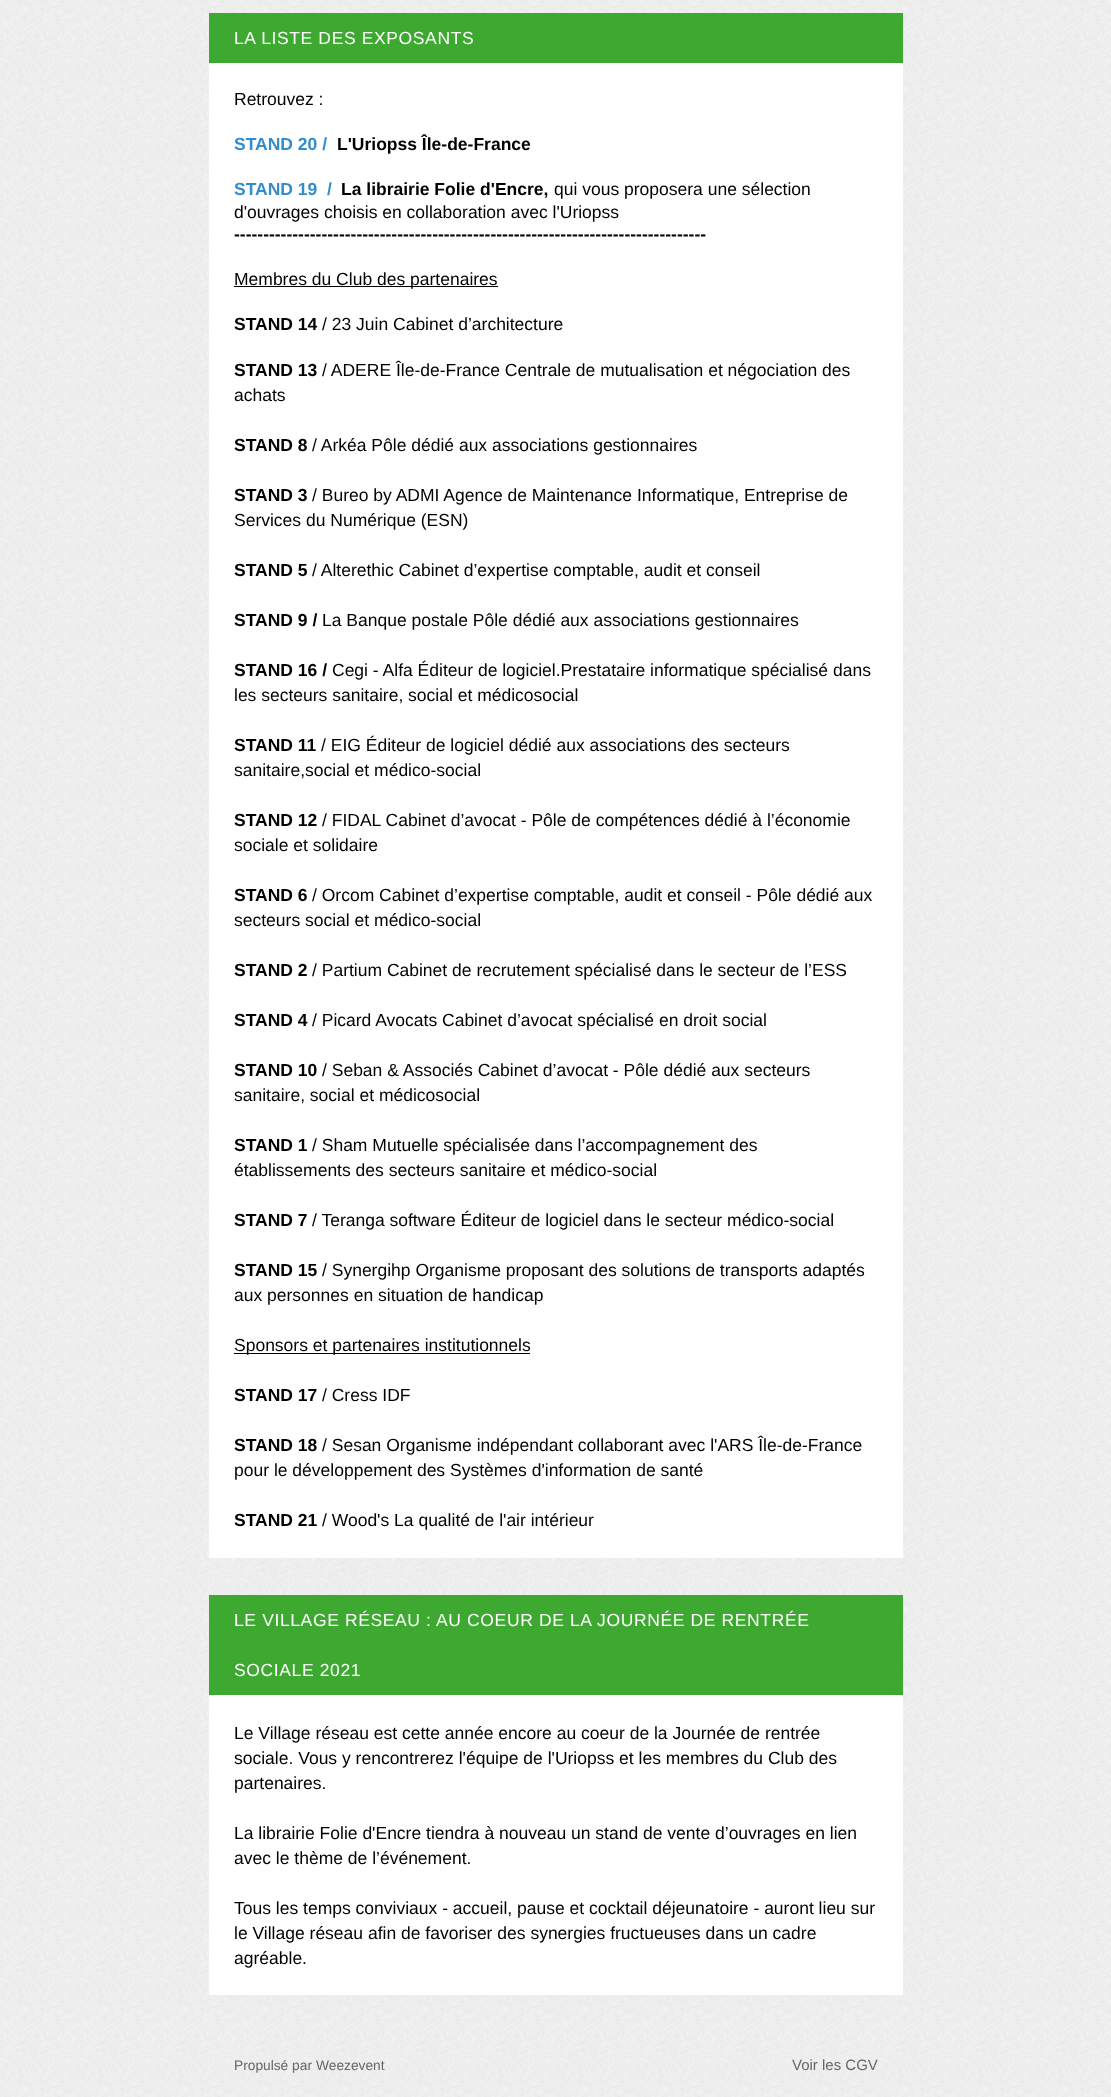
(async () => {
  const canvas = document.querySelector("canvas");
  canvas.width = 1111;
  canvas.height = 2097;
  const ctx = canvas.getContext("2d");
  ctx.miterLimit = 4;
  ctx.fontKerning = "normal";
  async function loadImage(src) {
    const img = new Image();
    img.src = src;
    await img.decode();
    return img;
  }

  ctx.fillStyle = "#ffffff";
  ctx.fillRect(0, 0, 1111, 2097);
  ctx.drawImage(await loadImage("img/1.png"), 0, 0, 1111, 2097);
  for (const [x, y, w, h, color] of [
    [209, 13, 694, 50, "#3da930"],
    [209, 63, 694, 1495, "#ffffff"],
    [234, 286, 264, 1, "#000000"],
    [234, 1353, 296, 1, "#000000"],
    [209, 1595, 694, 100, "#3da930"],
    [209, 1695, 694, 300, "#ffffff"],
  ]) {
    ctx.fillStyle = color;
    ctx.fillRect(x, y, w, h);
  }
  ctx.letterSpacing = "0.62px";
  ctx.font = "17.5px Liberation Sans";
  ctx.fillText("LA LISTE DES EXPOSANTS", 234, 44);
  ctx.letterSpacing = "0px";
  ctx.fillStyle = "#000000";
  ctx.fillText("Retrouvez :", 234, 105);
  ctx.font = "bold 17.5px Liberation Sans";
  ctx.fillStyle = "#338dcd";
  ctx.fillText("STAND 20 /", 234, 150);
  ctx.fillStyle = "#000000";
  ctx.fillText("L'Uriopss Île-de-France", 337, 150);
  ctx.fillStyle = "#338dcd";
  ctx.fillText("STAND 19  /", 234, 195);
  ctx.fillStyle = "#000000";
  ctx.fillText("La librairie Folie d'Encre,", 341, 195);
  ctx.font = "17.5px Liberation Sans";
  ctx.fillText("qui vous proposera une sélection", 554, 195);
  ctx.fillText("d'ouvrages choisis en collaboration avec l'Uriopss", 234, 218);
  ctx.font = "bold 17.5px Liberation Sans";
  ctx.fillText("---------------------------------------------------------------------------------", 234, 240);
  ctx.font = "17.5px Liberation Sans";
  ctx.fillText("Membres du Club des partenaires", 234, 285);
  ctx.font = "bold 17.5px Liberation Sans";
  ctx.fillText("STAND 14", 234, 330);
  ctx.font = "17.5px Liberation Sans";
  ctx.fillText("/ 23 Juin Cabinet d’architecture", 322, 330);
  ctx.font = "bold 17.5px Liberation Sans";
  ctx.fillText("STAND 13", 234, 376);
  ctx.font = "17.5px Liberation Sans";
  ctx.fillText("/ ADERE Île-de-France Centrale de mutualisation et négociation des", 322, 376);
  ctx.fillText("achats", 234, 401);
  ctx.font = "bold 17.5px Liberation Sans";
  ctx.fillText("STAND 8", 234, 451);
  ctx.font = "17.5px Liberation Sans";
  ctx.fillText("/ Arkéa Pôle dédié aux associations gestionnaires", 312, 451);
  ctx.font = "bold 17.5px Liberation Sans";
  ctx.fillText("STAND 3", 234, 501);
  ctx.font = "17.5px Liberation Sans";
  ctx.fillText("/ Bureo by ADMI Agence de Maintenance Informatique, Entreprise de", 312, 501);
  ctx.fillText("Services du Numérique (ESN)", 234, 526);
  ctx.font = "bold 17.5px Liberation Sans";
  ctx.fillText("STAND 5", 234, 576);
  ctx.font = "17.5px Liberation Sans";
  ctx.fillText("/ Alterethic Cabinet d’expertise comptable, audit et conseil", 312, 576);
  ctx.font = "bold 17.5px Liberation Sans";
  ctx.fillText("STAND 9 /", 234, 626);
  ctx.font = "17.5px Liberation Sans";
  ctx.fillText("La Banque postale Pôle dédié aux associations gestionnaires", 322, 626);
  ctx.font = "bold 17.5px Liberation Sans";
  ctx.fillText("STAND 16 /", 234, 676);
  ctx.font = "17.5px Liberation Sans";
  ctx.fillText("Cegi - Alfa Éditeur de logiciel.Prestataire informatique spécialisé dans", 332, 676);
  ctx.fillText("les secteurs sanitaire, social et médicosocial", 234, 701);
  ctx.font = "bold 17.5px Liberation Sans";
  ctx.fillText("STAND 11", 234, 751);
  ctx.font = "17.5px Liberation Sans";
  ctx.fillText("/ EIG Éditeur de logiciel dédié aux associations des secteurs", 321, 751);
  ctx.fillText("sanitaire,social et médico-social", 234, 776);
  ctx.font = "bold 17.5px Liberation Sans";
  ctx.fillText("STAND 12", 234, 826);
  ctx.font = "17.5px Liberation Sans";
  ctx.fillText("/ FIDAL Cabinet d’avocat - Pôle de compétences dédié à l’économie", 322, 826);
  ctx.fillText("sociale et solidaire", 234, 851);
  ctx.font = "bold 17.5px Liberation Sans";
  ctx.fillText("STAND 6", 234, 901);
  ctx.font = "17.5px Liberation Sans";
  ctx.fillText("/ Orcom Cabinet d’expertise comptable, audit et conseil - Pôle dédié aux", 312, 901);
  ctx.fillText("secteurs social et médico-social", 234, 926);
  ctx.font = "bold 17.5px Liberation Sans";
  ctx.fillText("STAND 2", 234, 976);
  ctx.font = "17.5px Liberation Sans";
  ctx.fillText("/ Partium Cabinet de recrutement spécialisé dans le secteur de l’ESS", 312, 976);
  ctx.font = "bold 17.5px Liberation Sans";
  ctx.fillText("STAND 4", 234, 1026);
  ctx.font = "17.5px Liberation Sans";
  ctx.fillText("/ Picard Avocats Cabinet d’avocat spécialisé en droit social", 312, 1026);
  ctx.font = "bold 17.5px Liberation Sans";
  ctx.fillText("STAND 10", 234, 1076);
  ctx.font = "17.5px Liberation Sans";
  ctx.fillText("/ Seban & Associés Cabinet d’avocat - Pôle dédié aux secteurs", 322, 1076);
  ctx.fillText("sanitaire, social et médicosocial", 234, 1101);
  ctx.font = "bold 17.5px Liberation Sans";
  ctx.fillText("STAND 1", 234, 1151);
  ctx.font = "17.5px Liberation Sans";
  ctx.fillText("/ Sham Mutuelle spécialisée dans l’accompagnement des", 312, 1151);
  ctx.fillText("établissements des secteurs sanitaire et médico-social", 234, 1176);
  ctx.font = "bold 17.5px Liberation Sans";
  ctx.fillText("STAND 7", 234, 1226);
  ctx.font = "17.5px Liberation Sans";
  ctx.fillText("/ Teranga software Éditeur de logiciel dans le secteur médico-social", 312, 1226);
  ctx.font = "bold 17.5px Liberation Sans";
  ctx.fillText("STAND 15", 234, 1276);
  ctx.font = "17.5px Liberation Sans";
  for (const [text, x, y] of [
    ["/ Synergihp Organisme proposant des solutions de transports adaptés", 322, 1276],
    ["aux personnes en situation de handicap", 234, 1301],
    ["Sponsors et partenaires institutionnels", 234, 1351],
  ]) {
    ctx.fillText(text, x, y);
  }
  ctx.font = "bold 17.5px Liberation Sans";
  ctx.fillText("STAND 17", 234, 1401);
  ctx.font = "17.5px Liberation Sans";
  ctx.fillText("/ Cress IDF", 322, 1401);
  ctx.font = "bold 17.5px Liberation Sans";
  ctx.fillText("STAND 18", 234, 1451);
  ctx.font = "17.5px Liberation Sans";
  ctx.fillText("/ Sesan Organisme indépendant collaborant avec l'ARS Île-de-France", 322, 1451);
  ctx.fillText("pour le développement des Systèmes d'information de santé", 234, 1476);
  ctx.font = "bold 17.5px Liberation Sans";
  ctx.fillText("STAND 21", 234, 1526);
  ctx.font = "17.5px Liberation Sans";
  ctx.fillText("/ Wood's La qualité de l'air intérieur", 322, 1526);
  ctx.letterSpacing = "0.62px";
  ctx.fillStyle = "#ffffff";
  ctx.fillText("LE VILLAGE RÉSEAU : AU COEUR DE LA JOURNÉE DE RENTRÉE", 234, 1626);
  ctx.fillText("SOCIALE 2021", 234, 1676);
  ctx.letterSpacing = "0px";
  ctx.fillStyle = "#000000";
  for (const [text, x, y] of [
    ["Le Village réseau est cette année encore au coeur de la Journée de rentrée", 234, 1739],
    ["sociale. Vous y rencontrerez l'équipe de l'Uriopss et les membres du Club des", 234, 1764],
    ["partenaires.", 234, 1789],
    ["La librairie Folie d'Encre tiendra à nouveau un stand de vente d’ouvrages en lien", 234, 1839],
    ["avec le thème de l’événement.", 234, 1864],
    ["Tous les temps conviviaux - accueil, pause et cocktail déjeunatoire - auront lieu sur", 234, 1914],
    ["le Village réseau afin de favoriser des synergies fructueuses dans un cadre", 234, 1939],
    ["agréable.", 234, 1964],
  ]) {
    ctx.fillText(text, x, y);
  }
  ctx.font = "13.75px Liberation Sans";
  ctx.fillStyle = "#666666";
  ctx.fillText("Propulsé par", 234, 2070);
  ctx.fillText("Weezevent", 316, 2070);
  ctx.font = "15px Liberation Sans";
  ctx.fillText("Voir les CGV", 792, 2070);
})();
